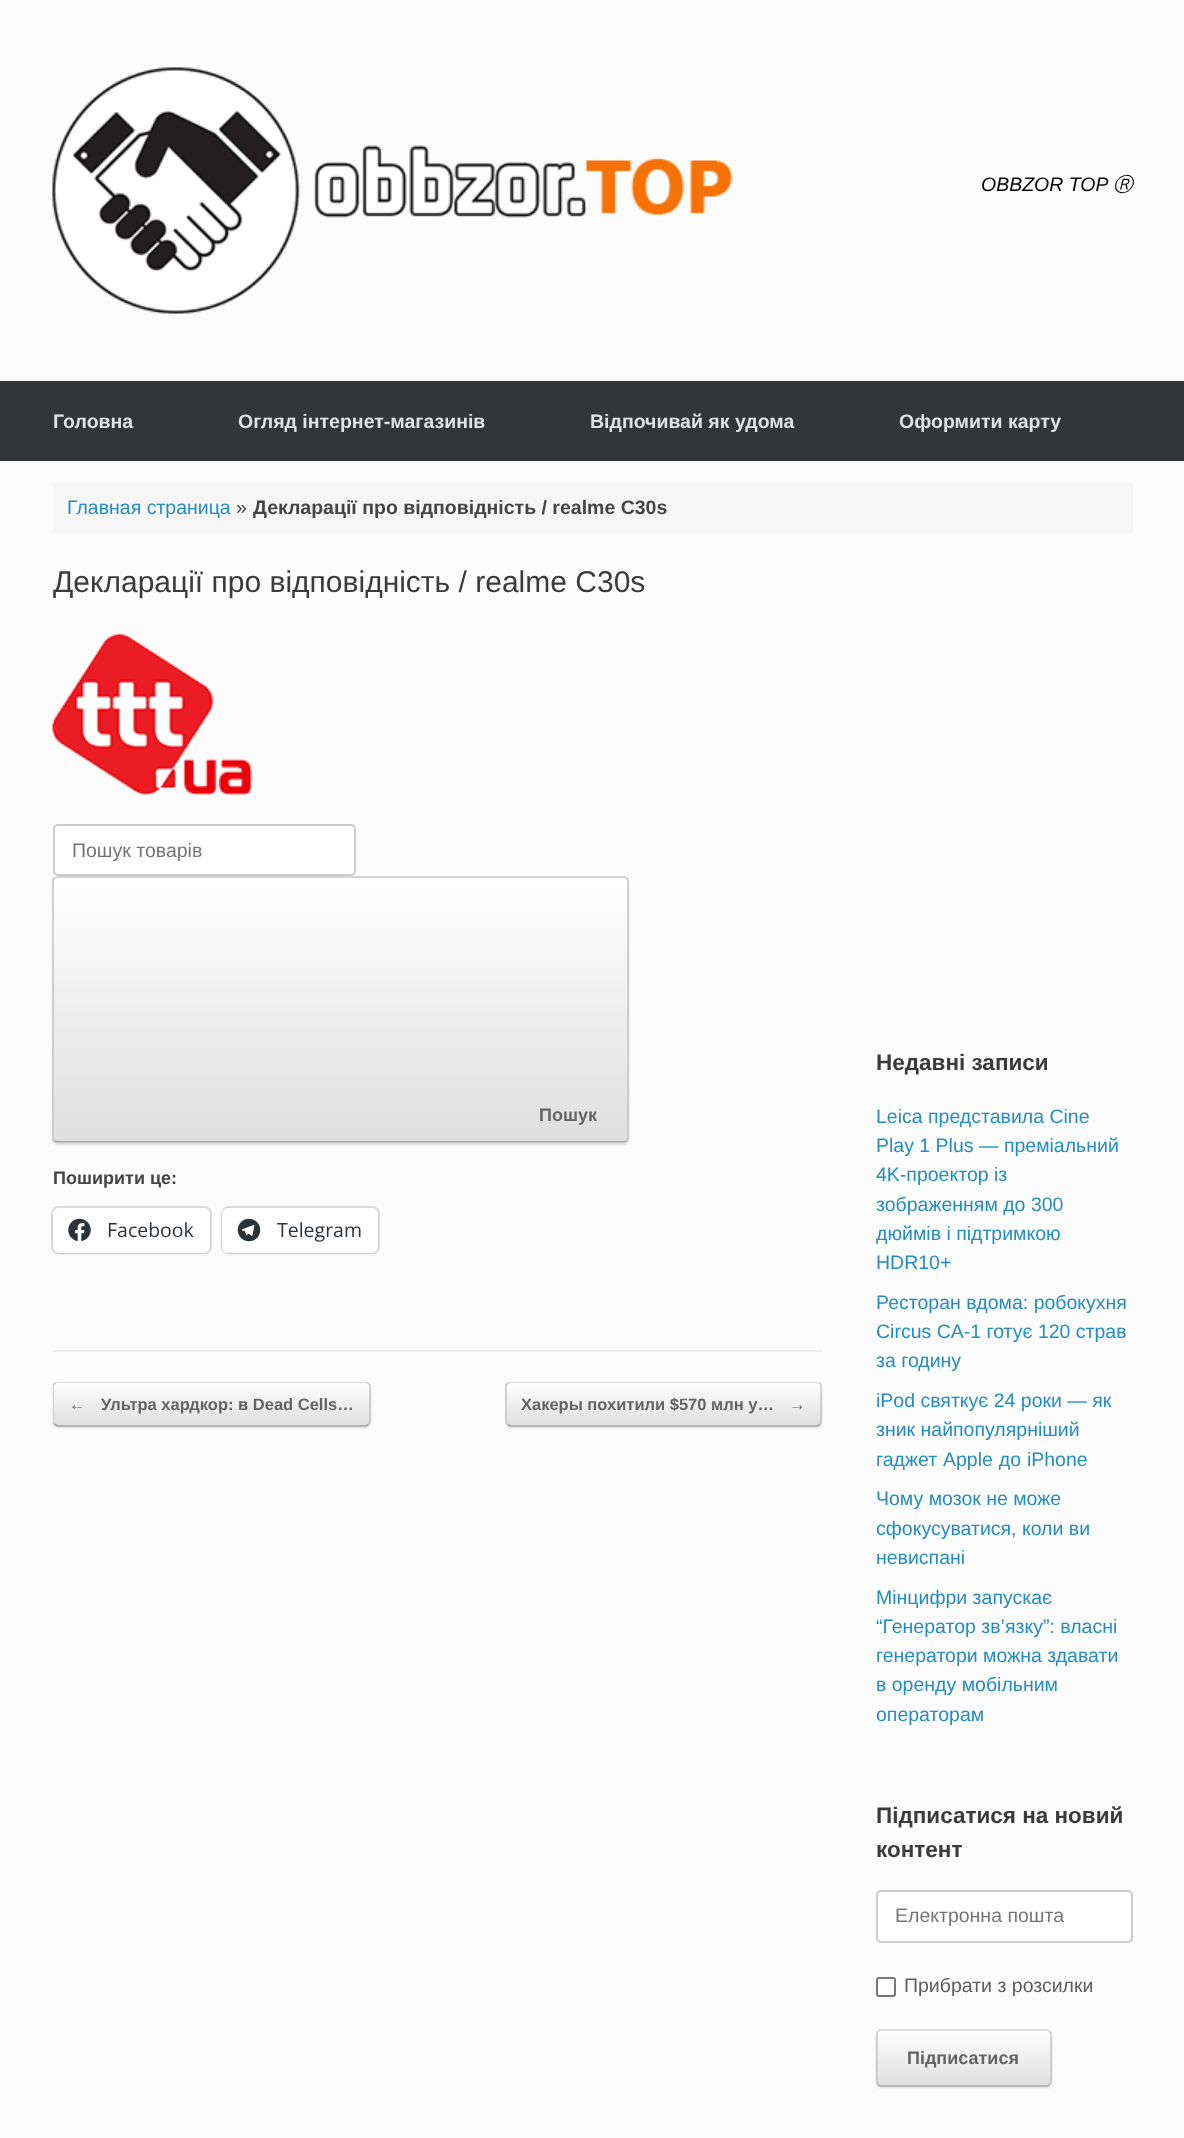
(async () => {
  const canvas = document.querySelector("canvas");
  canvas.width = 1184;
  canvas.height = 2138;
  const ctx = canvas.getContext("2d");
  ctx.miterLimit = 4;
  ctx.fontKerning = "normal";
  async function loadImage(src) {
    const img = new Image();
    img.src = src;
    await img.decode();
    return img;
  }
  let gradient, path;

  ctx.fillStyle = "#fcfcfc";
  ctx.fillRect(0, 0, 1184, 2138);
  ctx.drawImage(await loadImage("img/1.png"), 52, 67, 681, 247);
  for (const [x, y, w, h, color] of [
    [0, 381, 1184, 80, "#343538"],
    [53, 483, 1080, 50, "#f6f6f6"],
    [53, 1350, 769, 2, "#eeeeee"],
  ]) {
    ctx.fillStyle = color;
    ctx.fillRect(x, y, w, h);
  }
  ctx.drawImage(await loadImage("img/2.png"), 52, 633, 200, 162);
  ctx.fillStyle = "#ffffff";
  ctx.beginPath();
  ctx.roundRect(54, 825, 301, 50, 4);
  ctx.fill();
  ctx.strokeStyle = "#cccccc";
  ctx.lineWidth = 2;
  ctx.stroke();
  ctx.fillStyle = "rgba(0, 0, 0, 0.12)";
  ctx.filter = "blur(1px)";
  ctx.beginPath();
  ctx.roundRect(53, 878, 576, 267, 5);
  ctx.fill();
  ctx.filter = "none";
  ctx.save();
  ctx.beginPath();
  ctx.roundRect(53, 876, 576, 267, 5);
  ctx.clip();
  gradient = ctx.createLinearGradient(54, 878, 54, 614);
  gradient.addColorStop(0, "#dfdfdf");
  gradient.addColorStop(1, "#ffffff");
  ctx.fillStyle = gradient;
  ctx.fillRect(53, 876, 576, 2);
  gradient = ctx.createLinearGradient(54, 1142, 54, 878);
  gradient.addColorStop(0, "#dfdfdf");
  gradient.addColorStop(1, "#ffffff");
  ctx.fillStyle = gradient;
  ctx.fillRect(53, 878, 576, 264);
  gradient = ctx.createLinearGradient(54, 1406, 54, 1142);
  gradient.addColorStop(0, "#dfdfdf");
  gradient.addColorStop(1, "#ffffff");
  ctx.fillStyle = gradient;
  ctx.fillRect(53, 1142, 576, 1);
  ctx.restore();
  path = new Path2D("M54.5 878L57 877H624L626.5 878");
  ctx.strokeStyle = "#d2d2d2";
  ctx.lineWidth = 1.5;
  ctx.stroke(path);
  path = new Path2D("M626.5 878C627.5 878.5 628 879.5 628 880.5V1138.5C628 1139.5 627.5 1140.5 626.5 1141");
  ctx.strokeStyle = "#c3c3c3";
  ctx.stroke(path);
  path = new Path2D("M626.5 1141L624 1142H57L54.5 1141");
  ctx.strokeStyle = "#9f9f9f";
  ctx.stroke(path);
  path = new Path2D("M54.5 1141C53.5 1140.5 53 1139.5 53 1138.5V880.5C53 879.5 53.5 878.5 54.5 878");
  ctx.strokeStyle = "#c3c3c3";
  ctx.stroke(path);
  ctx.beginPath();
  ctx.roundRect(52, 1207, 159, 46, 7);
  ctx.strokeStyle = "#dedede";
  ctx.lineWidth = 2;
  ctx.stroke();
  ctx.filter = "blur(1.5px)";
  ctx.beginPath();
  ctx.roundRect(53, 1209, 157, 45, 6);
  ctx.fill();
  ctx.filter = "none";
  ctx.fillStyle = "#ffffff";
  ctx.beginPath();
  ctx.roundRect(53, 1208, 157, 45, 6);
  ctx.fill();
  ctx.drawImage(await loadImage("img/3.png"), 68, 1218, 23, 24);
  ctx.beginPath();
  ctx.roundRect(222, 1207, 157, 46, 7);
  ctx.stroke();
  ctx.fillStyle = "rgba(0, 0, 0, 0.12)";
  ctx.filter = "blur(1.5px)";
  ctx.beginPath();
  ctx.roundRect(222, 1209, 156, 45, 6);
  ctx.fill();
  ctx.filter = "none";
  ctx.fillStyle = "#ffffff";
  ctx.beginPath();
  ctx.roundRect(222, 1208, 156, 45, 6);
  ctx.fill();
  ctx.drawImage(await loadImage("img/4.png"), 237, 1218, 24, 24);
  ctx.save();
  path = new Path2D("M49 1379H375V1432H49ZM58 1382H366C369 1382 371 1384 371 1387V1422C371 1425 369 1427 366 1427H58C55 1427 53 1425 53 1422V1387C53 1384 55 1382 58 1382Z");
  ctx.clip(path, "evenodd");
  ctx.fillStyle = "rgba(0, 0, 0, 0.12)";
  ctx.filter = "blur(1px)";
  ctx.beginPath();
  ctx.roundRect(53, 1383, 318, 45, 5);
  ctx.fill();
  ctx.filter = "none";
  ctx.restore();
  ctx.save();
  ctx.beginPath();
  ctx.roundRect(53, 1382, 318, 45, 5);
  ctx.clip();
  gradient = ctx.createLinearGradient(54, 1425, 54, 1383);
  gradient.addColorStop(0, "#dfdfdf");
  gradient.addColorStop(1, "#ffffff");
  ctx.fillStyle = gradient;
  ctx.fillRect(53, 1383, 318, 42);
  gradient = ctx.createLinearGradient(54, 1467, 54, 1425);
  gradient.addColorStop(0, "#dfdfdf");
  gradient.addColorStop(1, "#ffffff");
  ctx.fillStyle = gradient;
  ctx.fillRect(53, 1425, 318, 2);
  ctx.restore();
  ctx.save();
  ctx.beginPath();
  ctx.rect(53, 1382, 769, 45);
  ctx.clip();
  path = new Path2D("M54.5 1383.5L57 1382H366L368.5 1383.5");
  ctx.strokeStyle = "#d2d2d2";
  ctx.lineWidth = 1.5;
  ctx.stroke(path);
  ctx.restore();
  path = new Path2D("M368.5 1383.5C369.5 1384 370 1385 370 1386V1422C370 1423 369.5 1424 368.5 1424.5");
  ctx.strokeStyle = "#c3c3c3";
  ctx.lineWidth = 1.5;
  ctx.stroke(path);
  path = new Path2D("M368.5 1424.5L366 1426H57L54.5 1424.5");
  ctx.strokeStyle = "#9f9f9f";
  ctx.stroke(path);
  ctx.save();
  ctx.beginPath();
  ctx.rect(53, 1382, 769, 45);
  ctx.clip();
  path = new Path2D("M54.5 1424.5C53.5 1424 53 1423 53 1422V1386C53 1385 53.5 1384 54.5 1383.5");
  ctx.strokeStyle = "#c3c3c3";
  ctx.stroke(path);
  ctx.restore();
  ctx.save();
  path = new Path2D("M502 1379H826V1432H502ZM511 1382H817C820 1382 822 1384 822 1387V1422C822 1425 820 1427 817 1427H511C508 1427 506 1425 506 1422V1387C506 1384 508 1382 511 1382Z");
  ctx.clip(path, "evenodd");
  ctx.fillStyle = "rgba(0, 0, 0, 0.12)";
  ctx.filter = "blur(1px)";
  ctx.beginPath();
  ctx.roundRect(506, 1383, 316, 45, 5);
  ctx.fill();
  ctx.filter = "none";
  ctx.restore();
  ctx.save();
  ctx.beginPath();
  ctx.roundRect(506, 1382, 316, 45, 5);
  ctx.clip();
  gradient = ctx.createLinearGradient(507, 1425, 507, 1383);
  gradient.addColorStop(0, "#dfdfdf");
  gradient.addColorStop(1, "#ffffff");
  ctx.fillStyle = gradient;
  ctx.fillRect(506, 1383, 316, 42);
  gradient = ctx.createLinearGradient(507, 1467, 507, 1425);
  gradient.addColorStop(0, "#dfdfdf");
  gradient.addColorStop(1, "#ffffff");
  ctx.fillStyle = gradient;
  ctx.fillRect(506, 1425, 316, 2);
  ctx.restore();
  ctx.save();
  ctx.beginPath();
  ctx.rect(53, 1382, 769, 45);
  ctx.clip();
  path = new Path2D("M507.5 1383.5L510 1382H817.5L820 1383.5");
  ctx.strokeStyle = "#d2d2d2";
  ctx.stroke(path);
  ctx.restore();
  path = new Path2D("M820 1383.5C821 1384 821 1385 821 1386V1422C821 1423 821 1424 820 1424.5");
  ctx.strokeStyle = "#c3c3c3";
  ctx.stroke(path);
  path = new Path2D("M820 1424.5L817.5 1426H510L507.5 1424.5");
  ctx.strokeStyle = "#9f9f9f";
  ctx.stroke(path);
  path = new Path2D("M507.5 1424.5C506.5 1424 506 1423 506 1422V1386C506 1385 506.5 1384 507.5 1383.5");
  ctx.strokeStyle = "#c3c3c3";
  ctx.stroke(path);
  ctx.beginPath();
  ctx.roundRect(877, 1891, 255, 51, 4);
  ctx.fill();
  ctx.strokeStyle = "#cccccc";
  ctx.lineWidth = 2;
  ctx.stroke();
  ctx.beginPath();
  ctx.roundRect(877, 1978, 18, 18, 2);
  ctx.fill();
  ctx.strokeStyle = "#767676";
  ctx.stroke();
  ctx.fillStyle = "rgba(0, 0, 0, 0.12)";
  ctx.filter = "blur(1px)";
  ctx.beginPath();
  ctx.roundRect(876, 2031, 176, 57, 5);
  ctx.fill();
  ctx.filter = "none";
  ctx.save();
  ctx.beginPath();
  ctx.roundRect(876, 2030, 176, 57, 5);
  ctx.clip();
  gradient = ctx.createLinearGradient(878, 2085, 878, 2031);
  gradient.addColorStop(0, "#dfdfdf");
  gradient.addColorStop(1, "#ffffff");
  ctx.fillStyle = gradient;
  ctx.fillRect(876, 2031, 176, 54);
  gradient = ctx.createLinearGradient(878, 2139, 878, 2085);
  gradient.addColorStop(0, "#dfdfdf");
  gradient.addColorStop(1, "#ffffff");
  ctx.fillStyle = gradient;
  ctx.fillRect(876, 2085, 176, 2);
  ctx.restore();
  path = new Path2D("M878 2031.5C878.5 2030.5 879.5 2030 880.5 2030H1047C1048 2030 1049 2030.5 1049.5 2031.5");
  ctx.strokeStyle = "#d2d2d2";
  ctx.lineWidth = 1.5;
  ctx.stroke(path);
  path = new Path2D("M1049.5 2031.5C1050.5 2032 1051 2033 1051 2034V2082C1051 2083 1050.5 2084 1049.5 2084.5");
  ctx.strokeStyle = "#c3c3c3";
  ctx.stroke(path);
  path = new Path2D("M1049.5 2084.5C1049 2085.5 1048 2086 1047 2086H880.5C879.5 2086 878.5 2085.5 878 2084.5");
  ctx.strokeStyle = "#9f9f9f";
  ctx.stroke(path);
  path = new Path2D("M878 2084.5C877 2084 877 2083 877 2082V2034C877 2033 877 2032 878 2031.5");
  ctx.strokeStyle = "#c3c3c3";
  ctx.stroke(path);
  ctx.font = "italic 19.5px Liberation Sans";
  ctx.fillStyle = "#000000";
  ctx.fillText("OBBZOR TOP", 981, 191);
  ctx.font = "italic 500 19.5px WenQuanYi Zen Hei";
  ctx.fillText("Ⓡ", 1113, 191);
  ctx.font = "bold 19.5px Liberation Sans";
  ctx.fillStyle = "#e2e2e2";
  for (const [text, x, y] of [
    ["Головна", 53, 428],
    ["Огляд інтернет-магазинів", 238, 428],
    ["Відпочивай як удома", 590, 428],
    ["Оформити карту", 899, 428],
  ]) {
    ctx.fillText(text, x, y);
  }
  ctx.font = "19.5px Liberation Sans";
  ctx.fillStyle = "#248cc8";
  ctx.fillText("Главная страница", 67, 514);
  ctx.fillStyle = "#444444";
  ctx.fillText("»", 236, 514);
  ctx.font = "bold 19.5px Liberation Sans";
  ctx.fillText("Декларації про відповідність / realme C30s", 253, 514);
  ctx.font = "30px Liberation Sans";
  ctx.fillStyle = "#3b3b3b";
  ctx.fillText("Декларації про відповідність / realme C30s", 53, 592);
  ctx.font = "19.5px Liberation Sans";
  ctx.fillStyle = "#757575";
  ctx.fillText("Пошук товарів", 72, 857);
  ctx.font = "bold 18px Liberation Sans";
  ctx.fillStyle = "#646464";
  ctx.fillText("Пошук", 539, 1121);
  ctx.fillStyle = "#444444";
  ctx.fillText("Поширити це:", 53, 1184);
  ctx.font = "19.5px Open Sans";
  ctx.fillStyle = "#2c3338";
  ctx.fillText("Facebook", 107, 1237);
  ctx.fillText("Telegram", 277, 1237);
  ctx.font = "bold 16.5px Liberation Sans";
  ctx.fillStyle = "#646464";
  for (const [text, x, y] of [
    ["←", 69, 1410],
    ["Ультра хардкор: в Dead Cells…", 101, 1410],
    ["Хакеры похитили $570 млн у…", 521, 1410],
    ["→", 789, 1410],
  ]) {
    ctx.fillText(text, x, y);
  }
  ctx.font = "bold 22.5px Liberation Sans";
  ctx.fillStyle = "#3b3b3b";
  ctx.fillText("Недавні записи", 876, 1070);
  ctx.font = "19.5px Liberation Sans";
  ctx.fillStyle = "#248cc8";
  for (const [text, x, y] of [
    ["Leica представила Cine", 876, 1123],
    ["Play 1 Plus — преміальний", 876, 1152],
    ["4K-проектор із", 876, 1181],
    ["зображенням до 300", 876, 1211],
    ["дюймів і підтримкою", 876, 1240],
    ["HDR10+", 876, 1269],
    ["Ресторан вдома: робокухня", 876, 1309],
    ["Circus CA-1 готує 120 страв", 876, 1338],
    ["за годину", 876, 1367],
    ["iPod святкує 24 роки — як", 876, 1407],
    ["зник найпопулярніший", 876, 1436],
  ]) {
    ctx.fillText(text, x, y);
  }
  ctx.wordSpacing = "0.5px";
  ctx.fillText("гаджет Apple до iPhone", 876, 1466);
  ctx.wordSpacing = "0px";
  for (const [text, x, y] of [
    ["Чому мозок не може", 876, 1505],
    ["сфокусуватися, коли ви", 876, 1535],
    ["невиспані", 876, 1564],
    ["Мінцифри запускає", 876, 1604],
    ["“Генератор зв’язку”: власні", 876, 1633],
    ["генератори можна здавати", 876, 1662],
    ["в оренду мобільним", 876, 1691],
    ["операторам", 876, 1721],
  ]) {
    ctx.fillText(text, x, y);
  }
  ctx.font = "bold 22.5px Liberation Sans";
  ctx.fillStyle = "#3b3b3b";
  ctx.fillText("Підписатися на новий", 876, 1823);
  ctx.fillText("контент", 876, 1857);
  ctx.font = "19.5px Liberation Sans";
  ctx.fillStyle = "#757575";
  ctx.fillText("Електронна пошта", 895, 1922);
  ctx.fillStyle = "#5e5e5e";
  ctx.fillText("Прибрати з розсилки", 904, 1992);
  ctx.font = "bold 18px Liberation Sans";
  ctx.fillStyle = "#646464";
  ctx.fillText("Підписатися", 907, 2064);
})();
